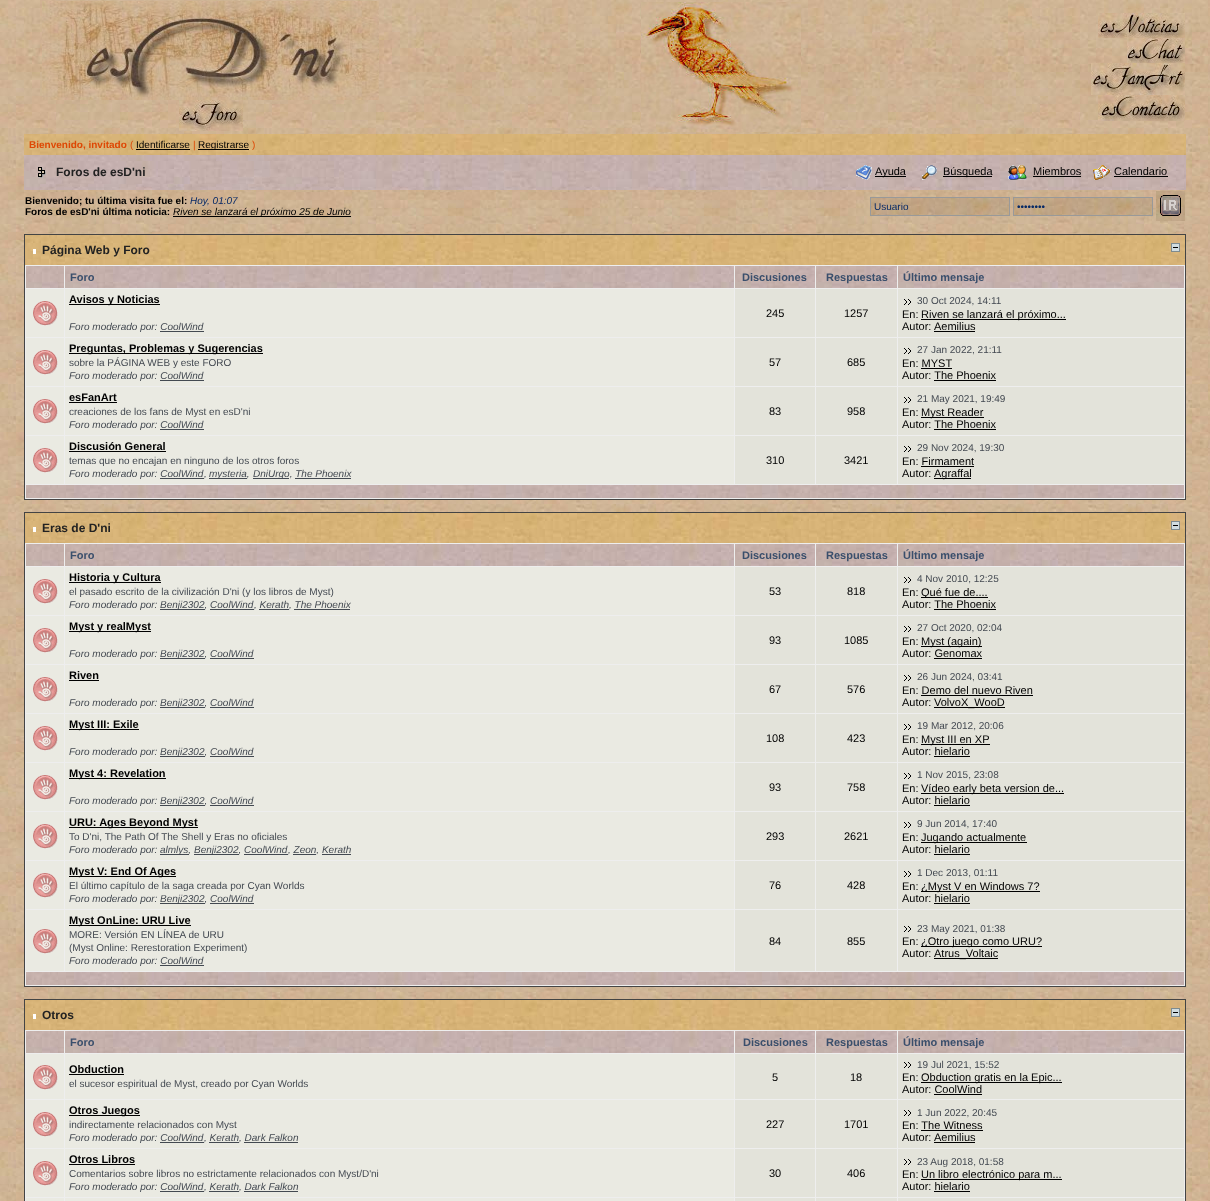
(async () => {
  const canvas = document.querySelector("canvas");
  canvas.width = 1210;
  canvas.height = 1201;
  const ctx = canvas.getContext("2d");
  ctx.miterLimit = 4;
  ctx.fontKerning = "normal";
  async function loadImage(src) {
    const img = new Image();
    img.src = src;
    await img.decode();
    return img;
  }

  ctx.fillStyle = "#ffffff";
  ctx.fillRect(0, 0, 1210, 1201);
  ctx.drawImage(await loadImage("img/1.png"), 0, 0, 1210, 1201);
  ctx.drawImage(await loadImage("img/2.png"), 42, 1, 337, 99);
  ctx.drawImage(await loadImage("img/3.png"), 179, 100, 64, 31);
  ctx.drawImage(await loadImage("img/4.png"), 641, 2, 160, 130);
  ctx.drawImage(await loadImage("img/5.png"), 1098, 13, 87, 25);
  ctx.drawImage(await loadImage("img/6.png"), 1127, 38, 58, 25);
  ctx.drawImage(await loadImage("img/7.png"), 1091, 63, 94, 32);
  ctx.drawImage(await loadImage("img/8.png"), 1098, 95, 87, 26);
  ctx.drawImage(await loadImage("img/9.png"), 24, 134, 1162, 21);
  ctx.fillStyle = "#000000";
  ctx.fillRect(136, 149, 54, 1);
  ctx.fillRect(198, 149, 51, 1);
  ctx.drawImage(await loadImage("img/10.png"), 24, 155, 1162, 35);
  ctx.drawImage(await loadImage("img/11.png"), 30, 161, 309, 23);
  ctx.drawImage(await loadImage("img/12.png"), 38, 167, 8, 11);
  ctx.drawImage(await loadImage("img/13.png"), 856, 165, 16, 15);
  ctx.fillRect(875, 176, 31, 1);
  ctx.drawImage(await loadImage("img/14.png"), 922, 165, 15, 15);
  ctx.fillRect(943, 176, 49, 1);
  ctx.drawImage(await loadImage("img/15.png"), 1008, 165, 19, 15);
  ctx.fillRect(1033, 176, 48, 1);
  ctx.drawImage(await loadImage("img/16.png"), 1093, 165, 18, 15);
  ctx.fillRect(1114, 176, 54, 1);
  ctx.fillRect(173, 216, 178, 1);
  ctx.drawImage(await loadImage("img/17.png"), 871, 198, 138, 17);
  ctx.strokeStyle = "#999999";
  ctx.strokeRect(870.5, 197.5, 139, 18);
  ctx.drawImage(await loadImage("img/17.png"), 1014, 198, 138, 17);
  ctx.strokeRect(1013.5, 197.5, 139, 18);
  ctx.drawImage(await loadImage("img/18.png"), 1156, 191, 29, 30);
  ctx.fillStyle = "#eeeeee";
  ctx.fillRect(25, 265, 1160, 234);
  ctx.strokeStyle = "#444444";
  ctx.strokeRect(24.5, 234.5, 1161, 265);
  ctx.drawImage(await loadImage("img/19.png"), 25, 235, 1160, 30);
  ctx.fillStyle = "#ffffff";
  ctx.fillRect(33, 249, 3, 5);
  ctx.drawImage(await loadImage("img/20.png"), 1171, 243, 9, 9);
  ctx.drawImage(await loadImage("img/21.png"), 26, 266, 38, 22);
  ctx.drawImage(await loadImage("img/22.png"), 65, 266, 669, 22);
  ctx.drawImage(await loadImage("img/23.png"), 735, 266, 80, 22);
  ctx.drawImage(await loadImage("img/24.png"), 816, 266, 81, 22);
  ctx.drawImage(await loadImage("img/25.png"), 898, 266, 286, 22);
  ctx.fillStyle = "#eaeae2";
  ctx.fillRect(26, 289, 38, 48);
  ctx.drawImage(await loadImage("img/26.png"), 33, 301, 25, 25);
  for (const [x, y, w, h, color] of [
    [65, 289, 669, 48, "#eaeae2"],
    [69, 304, 91, 1, "#000000"],
    [160, 331, 44, 1, "#434951"],
    [735, 289, 80, 48, "#e3e3da"],
    [816, 289, 81, 48, "#e3e3da"],
    [898, 289, 286, 48, "#e3e3da"],
  ]) {
    ctx.fillStyle = color;
    ctx.fillRect(x, y, w, h);
  }
  ctx.drawImage(await loadImage("img/27.png"), 904, 299, 7, 6);
  for (const [x, y, w, h, color] of [
    [921, 319, 145, 1, "#000000"],
    [934, 331, 41, 1, "#000000"],
    [26, 338, 38, 48, "#eaeae2"],
  ]) {
    ctx.fillStyle = color;
    ctx.fillRect(x, y, w, h);
  }
  ctx.drawImage(await loadImage("img/26.png"), 33, 350, 25, 25);
  for (const [x, y, w, h, color] of [
    [65, 338, 669, 48, "#eaeae2"],
    [69, 353, 194, 1, "#000000"],
    [160, 380, 44, 1, "#434951"],
    [735, 338, 80, 48, "#e3e3da"],
    [816, 338, 81, 48, "#e3e3da"],
    [898, 338, 286, 48, "#e3e3da"],
  ]) {
    ctx.fillStyle = color;
    ctx.fillRect(x, y, w, h);
  }
  ctx.drawImage(await loadImage("img/27.png"), 904, 348, 7, 6);
  for (const [x, y, w, h, color] of [
    [921, 368, 31, 1, "#000000"],
    [934, 380, 62, 1, "#000000"],
    [26, 387, 38, 48, "#eaeae2"],
  ]) {
    ctx.fillStyle = color;
    ctx.fillRect(x, y, w, h);
  }
  ctx.drawImage(await loadImage("img/26.png"), 33, 399, 25, 25);
  for (const [x, y, w, h, color] of [
    [65, 387, 669, 48, "#eaeae2"],
    [69, 402, 48, 1, "#000000"],
    [160, 429, 44, 1, "#434951"],
    [735, 387, 80, 48, "#e3e3da"],
    [816, 387, 81, 48, "#e3e3da"],
    [898, 387, 286, 48, "#e3e3da"],
  ]) {
    ctx.fillStyle = color;
    ctx.fillRect(x, y, w, h);
  }
  ctx.drawImage(await loadImage("img/27.png"), 904, 397, 7, 6);
  for (const [x, y, w, h, color] of [
    [921, 417, 63, 1, "#000000"],
    [934, 429, 62, 1, "#000000"],
    [26, 436, 38, 48, "#eaeae2"],
  ]) {
    ctx.fillStyle = color;
    ctx.fillRect(x, y, w, h);
  }
  ctx.drawImage(await loadImage("img/26.png"), 33, 448, 25, 25);
  for (const [x, y, w, h, color] of [
    [65, 436, 669, 48, "#eaeae2"],
    [69, 451, 97, 1, "#000000"],
    [160, 478, 44, 1, "#434951"],
    [209, 478, 38, 1, "#434951"],
    [253, 478, 36, 1, "#434951"],
    [295, 478, 56, 1, "#434951"],
    [735, 436, 80, 48, "#e3e3da"],
    [816, 436, 81, 48, "#e3e3da"],
    [898, 436, 286, 48, "#e3e3da"],
  ]) {
    ctx.fillStyle = color;
    ctx.fillRect(x, y, w, h);
  }
  ctx.drawImage(await loadImage("img/27.png"), 904, 446, 7, 6);
  ctx.fillStyle = "#000000";
  ctx.fillRect(921, 466, 53, 1);
  ctx.fillRect(934, 478, 37, 1);
  ctx.drawImage(await loadImage("img/28.png"), 26, 485, 1158, 13);
  ctx.fillStyle = "#eeeeee";
  ctx.fillRect(25, 543, 1160, 443);
  ctx.strokeRect(24.5, 512.5, 1161, 474);
  ctx.drawImage(await loadImage("img/19.png"), 25, 513, 1160, 30);
  ctx.fillStyle = "#ffffff";
  ctx.fillRect(33, 527, 3, 5);
  ctx.drawImage(await loadImage("img/20.png"), 1171, 521, 9, 9);
  ctx.drawImage(await loadImage("img/21.png"), 26, 544, 38, 22);
  ctx.drawImage(await loadImage("img/22.png"), 65, 544, 669, 22);
  ctx.drawImage(await loadImage("img/23.png"), 735, 544, 80, 22);
  ctx.drawImage(await loadImage("img/24.png"), 816, 544, 81, 22);
  ctx.drawImage(await loadImage("img/25.png"), 898, 544, 286, 22);
  ctx.fillStyle = "#eaeae2";
  ctx.fillRect(26, 567, 38, 48);
  ctx.drawImage(await loadImage("img/26.png"), 33, 579, 25, 25);
  for (const [x, y, w, h, color] of [
    [65, 567, 669, 48, "#eaeae2"],
    [69, 582, 92, 1, "#000000"],
    [160, 609, 45, 1, "#434951"],
    [210, 609, 44, 1, "#434951"],
    [259, 609, 30, 1, "#434951"],
    [294, 609, 56, 1, "#434951"],
    [735, 567, 80, 48, "#e3e3da"],
    [816, 567, 81, 48, "#e3e3da"],
    [898, 567, 286, 48, "#e3e3da"],
  ]) {
    ctx.fillStyle = color;
    ctx.fillRect(x, y, w, h);
  }
  ctx.drawImage(await loadImage("img/27.png"), 904, 577, 7, 6);
  for (const [x, y, w, h, color] of [
    [921, 597, 67, 1, "#000000"],
    [934, 609, 62, 1, "#000000"],
    [26, 616, 38, 48, "#eaeae2"],
  ]) {
    ctx.fillStyle = color;
    ctx.fillRect(x, y, w, h);
  }
  ctx.drawImage(await loadImage("img/26.png"), 33, 628, 25, 25);
  for (const [x, y, w, h, color] of [
    [65, 616, 669, 48, "#eaeae2"],
    [69, 631, 82, 1, "#000000"],
    [160, 658, 45, 1, "#434951"],
    [210, 658, 44, 1, "#434951"],
    [735, 616, 80, 48, "#e3e3da"],
    [816, 616, 81, 48, "#e3e3da"],
    [898, 616, 286, 48, "#e3e3da"],
  ]) {
    ctx.fillStyle = color;
    ctx.fillRect(x, y, w, h);
  }
  ctx.drawImage(await loadImage("img/27.png"), 904, 626, 7, 6);
  for (const [x, y, w, h, color] of [
    [921, 646, 61, 1, "#000000"],
    [934, 658, 48, 1, "#000000"],
    [26, 665, 38, 48, "#eaeae2"],
  ]) {
    ctx.fillStyle = color;
    ctx.fillRect(x, y, w, h);
  }
  ctx.drawImage(await loadImage("img/26.png"), 33, 677, 25, 25);
  for (const [x, y, w, h, color] of [
    [65, 665, 669, 48, "#eaeae2"],
    [69, 680, 30, 1, "#000000"],
    [160, 707, 45, 1, "#434951"],
    [210, 707, 44, 1, "#434951"],
    [735, 665, 80, 48, "#e3e3da"],
    [816, 665, 81, 48, "#e3e3da"],
    [898, 665, 286, 48, "#e3e3da"],
  ]) {
    ctx.fillStyle = color;
    ctx.fillRect(x, y, w, h);
  }
  ctx.drawImage(await loadImage("img/27.png"), 904, 675, 7, 6);
  for (const [x, y, w, h, color] of [
    [921, 695, 112, 1, "#000000"],
    [934, 707, 71, 1, "#000000"],
    [26, 714, 38, 48, "#eaeae2"],
  ]) {
    ctx.fillStyle = color;
    ctx.fillRect(x, y, w, h);
  }
  ctx.drawImage(await loadImage("img/26.png"), 33, 726, 25, 25);
  for (const [x, y, w, h, color] of [
    [65, 714, 669, 48, "#eaeae2"],
    [69, 729, 70, 1, "#000000"],
    [160, 756, 45, 1, "#434951"],
    [210, 756, 44, 1, "#434951"],
    [735, 714, 80, 48, "#e3e3da"],
    [816, 714, 81, 48, "#e3e3da"],
    [898, 714, 286, 48, "#e3e3da"],
  ]) {
    ctx.fillStyle = color;
    ctx.fillRect(x, y, w, h);
  }
  ctx.drawImage(await loadImage("img/27.png"), 904, 724, 7, 6);
  for (const [x, y, w, h, color] of [
    [921, 744, 69, 1, "#000000"],
    [934, 756, 36, 1, "#000000"],
    [26, 763, 38, 48, "#eaeae2"],
  ]) {
    ctx.fillStyle = color;
    ctx.fillRect(x, y, w, h);
  }
  ctx.drawImage(await loadImage("img/26.png"), 33, 775, 25, 25);
  for (const [x, y, w, h, color] of [
    [65, 763, 669, 48, "#eaeae2"],
    [69, 778, 97, 1, "#000000"],
    [160, 805, 45, 1, "#434951"],
    [210, 805, 44, 1, "#434951"],
    [735, 763, 80, 48, "#e3e3da"],
    [816, 763, 81, 48, "#e3e3da"],
    [898, 763, 286, 48, "#e3e3da"],
  ]) {
    ctx.fillStyle = color;
    ctx.fillRect(x, y, w, h);
  }
  ctx.drawImage(await loadImage("img/27.png"), 904, 773, 7, 6);
  for (const [x, y, w, h, color] of [
    [921, 793, 143, 1, "#000000"],
    [934, 805, 36, 1, "#000000"],
    [26, 812, 38, 48, "#eaeae2"],
  ]) {
    ctx.fillStyle = color;
    ctx.fillRect(x, y, w, h);
  }
  ctx.drawImage(await loadImage("img/26.png"), 33, 824, 25, 25);
  for (const [x, y, w, h, color] of [
    [65, 812, 669, 48, "#eaeae2"],
    [69, 827, 129, 1, "#000000"],
    [160, 854, 29, 1, "#434951"],
    [194, 854, 45, 1, "#434951"],
    [244, 854, 44, 1, "#434951"],
    [293, 854, 23, 1, "#434951"],
    [322, 854, 29, 1, "#434951"],
    [735, 812, 80, 48, "#e3e3da"],
    [816, 812, 81, 48, "#e3e3da"],
    [898, 812, 286, 48, "#e3e3da"],
  ]) {
    ctx.fillStyle = color;
    ctx.fillRect(x, y, w, h);
  }
  ctx.drawImage(await loadImage("img/27.png"), 904, 822, 7, 6);
  for (const [x, y, w, h, color] of [
    [921, 842, 106, 1, "#000000"],
    [934, 854, 36, 1, "#000000"],
    [26, 861, 38, 48, "#eaeae2"],
  ]) {
    ctx.fillStyle = color;
    ctx.fillRect(x, y, w, h);
  }
  ctx.drawImage(await loadImage("img/26.png"), 33, 873, 25, 25);
  for (const [x, y, w, h, color] of [
    [65, 861, 669, 48, "#eaeae2"],
    [69, 876, 107, 1, "#000000"],
    [160, 903, 45, 1, "#434951"],
    [210, 903, 44, 1, "#434951"],
    [735, 861, 80, 48, "#e3e3da"],
    [816, 861, 81, 48, "#e3e3da"],
    [898, 861, 286, 48, "#e3e3da"],
  ]) {
    ctx.fillStyle = color;
    ctx.fillRect(x, y, w, h);
  }
  ctx.drawImage(await loadImage("img/27.png"), 904, 871, 7, 6);
  for (const [x, y, w, h, color] of [
    [921, 891, 119, 1, "#000000"],
    [934, 903, 36, 1, "#000000"],
    [26, 910, 38, 61, "#eaeae2"],
  ]) {
    ctx.fillStyle = color;
    ctx.fillRect(x, y, w, h);
  }
  ctx.drawImage(await loadImage("img/26.png"), 33, 929, 25, 25);
  for (const [x, y, w, h, color] of [
    [65, 910, 669, 61, "#eaeae2"],
    [69, 925, 122, 1, "#000000"],
    [160, 965, 44, 1, "#434951"],
    [735, 910, 80, 61, "#e3e3da"],
    [816, 910, 81, 61, "#e3e3da"],
    [898, 910, 286, 61, "#e3e3da"],
  ]) {
    ctx.fillStyle = color;
    ctx.fillRect(x, y, w, h);
  }
  ctx.drawImage(await loadImage("img/27.png"), 904, 926, 7, 6);
  ctx.fillStyle = "#000000";
  ctx.fillRect(921, 946, 121, 1);
  ctx.fillRect(934, 958, 64, 1);
  ctx.drawImage(await loadImage("img/28.png"), 26, 972, 1158, 13);
  ctx.fillStyle = "#eeeeee";
  ctx.fillRect(25, 1030, 1160, 171);
  ctx.strokeRect(24.5, 999.5, 1161, 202);
  ctx.drawImage(await loadImage("img/19.png"), 25, 1000, 1160, 30);
  ctx.fillStyle = "#ffffff";
  ctx.fillRect(33, 1014, 3, 5);
  ctx.drawImage(await loadImage("img/20.png"), 1171, 1008, 9, 9);
  ctx.drawImage(await loadImage("img/21.png"), 26, 1031, 38, 22);
  ctx.drawImage(await loadImage("img/22.png"), 65, 1031, 669, 22);
  ctx.drawImage(await loadImage("img/23.png"), 735, 1031, 80, 22);
  ctx.drawImage(await loadImage("img/24.png"), 816, 1031, 81, 22);
  ctx.drawImage(await loadImage("img/25.png"), 898, 1031, 286, 22);
  ctx.fillStyle = "#eaeae2";
  ctx.fillRect(26, 1054, 38, 45);
  ctx.drawImage(await loadImage("img/26.png"), 33, 1065, 25, 25);
  for (const [x, y, w, h, color] of [
    [65, 1054, 669, 45, "#eaeae2"],
    [69, 1074, 55, 1, "#000000"],
    [735, 1054, 80, 45, "#e3e3da"],
    [816, 1054, 81, 45, "#e3e3da"],
    [898, 1054, 286, 45, "#e3e3da"],
  ]) {
    ctx.fillStyle = color;
    ctx.fillRect(x, y, w, h);
  }
  ctx.drawImage(await loadImage("img/27.png"), 904, 1062, 7, 6);
  for (const [x, y, w, h, color] of [
    [921, 1082, 141, 1, "#000000"],
    [934, 1094, 48, 1, "#000000"],
    [26, 1100, 38, 48, "#eaeae2"],
  ]) {
    ctx.fillStyle = color;
    ctx.fillRect(x, y, w, h);
  }
  ctx.drawImage(await loadImage("img/26.png"), 33, 1112, 25, 25);
  for (const [x, y, w, h, color] of [
    [65, 1100, 669, 48, "#eaeae2"],
    [69, 1115, 71, 1, "#000000"],
    [160, 1142, 44, 1, "#434951"],
    [209, 1142, 30, 1, "#434951"],
    [244, 1142, 54, 1, "#434951"],
    [735, 1100, 80, 48, "#e3e3da"],
    [816, 1100, 81, 48, "#e3e3da"],
    [898, 1100, 286, 48, "#e3e3da"],
  ]) {
    ctx.fillStyle = color;
    ctx.fillRect(x, y, w, h);
  }
  ctx.drawImage(await loadImage("img/27.png"), 904, 1110, 7, 6);
  for (const [x, y, w, h, color] of [
    [921, 1130, 62, 1, "#000000"],
    [934, 1142, 41, 1, "#000000"],
    [26, 1149, 38, 48, "#eaeae2"],
  ]) {
    ctx.fillStyle = color;
    ctx.fillRect(x, y, w, h);
  }
  ctx.drawImage(await loadImage("img/26.png"), 33, 1161, 25, 25);
  for (const [x, y, w, h, color] of [
    [65, 1149, 669, 48, "#eaeae2"],
    [69, 1164, 66, 1, "#000000"],
    [160, 1191, 44, 1, "#434951"],
    [209, 1191, 30, 1, "#434951"],
    [244, 1191, 54, 1, "#434951"],
    [735, 1149, 80, 48, "#e3e3da"],
    [816, 1149, 81, 48, "#e3e3da"],
    [898, 1149, 286, 48, "#e3e3da"],
  ]) {
    ctx.fillStyle = color;
    ctx.fillRect(x, y, w, h);
  }
  ctx.drawImage(await loadImage("img/27.png"), 904, 1159, 7, 6);
  for (const [x, y, w, h, color] of [
    [921, 1179, 141, 1, "#000000"],
    [934, 1191, 36, 1, "#000000"],
    [26, 1198, 38, 3, "#eaeae2"],
    [65, 1198, 669, 3, "#eaeae2"],
    [735, 1198, 80, 3, "#e3e3da"],
    [816, 1198, 81, 3, "#e3e3da"],
    [898, 1198, 286, 3, "#e3e3da"],
  ]) {
    ctx.fillStyle = color;
    ctx.fillRect(x, y, w, h);
  }
  ctx.font = "bold 10px Liberation Sans";
  ctx.fillStyle = "#de4704";
  ctx.fillText("Bienvenido, invitado", 29, 148);
  ctx.font = "10px Liberation Sans";
  ctx.fillText("(", 130, 148);
  ctx.fillStyle = "#000000";
  ctx.fillText("Identificarse", 136, 148);
  ctx.fillStyle = "#de4704";
  ctx.fillText("|", 193, 148);
  ctx.fillStyle = "#000000";
  ctx.fillText("Registrarse", 198, 148);
  ctx.fillStyle = "#de4704";
  ctx.fillText(")", 252, 148);
  ctx.font = "bold 12px Liberation Sans";
  ctx.fillStyle = "#222222";
  ctx.fillText("Foros de esD'ni", 56, 176);
  ctx.font = "11px Liberation Sans";
  ctx.fillStyle = "#000000";
  for (const [text, x, y] of [
    ["Ayuda", 875, 175],
    ["Búsqueda", 943, 175],
    ["Miembros", 1033, 175],
    ["Calendario", 1114, 175],
  ]) {
    ctx.fillText(text, x, y);
  }
  ctx.font = "bold 10px Liberation Sans";
  ctx.fillText("Bienvenido; tu última visita fue el:", 25, 204);
  ctx.font = "italic 10px Liberation Sans";
  ctx.fillStyle = "#072a66";
  ctx.fillText("Hoy, 01:07", 190, 204);
  ctx.font = "bold 10px Liberation Sans";
  ctx.fillStyle = "#000000";
  ctx.fillText("Foros de esD'ni última noticia:", 25, 215);
  ctx.font = "italic 10px Liberation Sans";
  ctx.fillText("Riven se lanzará el próximo 25 de Junio", 173, 215);
  ctx.font = "10px Liberation Sans";
  ctx.fillStyle = "#072a66";
  ctx.fillText("Usuario", 874, 210);
  ctx.fillText("••••••••", 1017, 210);
  ctx.font = "bold 12px Liberation Sans";
  ctx.fillStyle = "#222222";
  ctx.fillText("Página Web y Foro", 42, 254);
  ctx.font = "bold 11px Liberation Sans";
  ctx.fillStyle = "#3a4f6c";
  for (const [text, x, y] of [
    ["Foro", 70, 281],
    ["Discusiones", 742, 281],
    ["Respuestas", 826, 281],
    ["Último mensaje", 903, 281],
  ]) {
    ctx.fillText(text, x, y);
  }
  ctx.fillStyle = "#000000";
  ctx.fillText("Avisos y Noticias", 69, 303);
  ctx.font = "italic 10px Liberation Sans";
  ctx.fillStyle = "#434951";
  ctx.fillText("Foro moderado por: CoolWind", 69, 330);
  ctx.font = "11px Liberation Sans";
  ctx.fillStyle = "#000000";
  ctx.fillText("245", 766, 317);
  ctx.fillText("1257", 844, 317);
  ctx.font = "10px Liberation Sans";
  ctx.fillStyle = "#434951";
  ctx.fillText("30 Oct 2024, 14:11", 917, 304);
  ctx.font = "11px Liberation Sans";
  ctx.fillStyle = "#000000";
  for (const [text, x, y] of [
    ["En:", 902, 318],
    ["Riven se lanzará el próximo...", 921, 318],
    ["Autor:", 902, 330],
    ["Aemilius", 934, 330],
  ]) {
    ctx.fillText(text, x, y);
  }
  ctx.font = "bold 11px Liberation Sans";
  ctx.fillText("Preguntas, Problemas y Sugerencias", 69, 352);
  ctx.font = "10px Liberation Sans";
  ctx.fillStyle = "#434951";
  ctx.fillText("sobre la PÁGINA WEB y este FORO", 69, 366);
  ctx.font = "italic 10px Liberation Sans";
  ctx.fillText("Foro moderado por: CoolWind", 69, 379);
  ctx.font = "11px Liberation Sans";
  ctx.fillStyle = "#000000";
  ctx.fillText("57", 769, 366);
  ctx.fillText("685", 847, 366);
  ctx.font = "10px Liberation Sans";
  ctx.fillStyle = "#434951";
  ctx.fillText("27 Jan 2022, 21:11", 917, 353);
  ctx.font = "11px Liberation Sans";
  ctx.fillStyle = "#000000";
  ctx.fillText("En: MYST", 902, 367);
  ctx.fillText("Autor: The Phoenix", 902, 379);
  ctx.font = "bold 11px Liberation Sans";
  ctx.fillText("esFanArt", 69, 401);
  ctx.font = "10px Liberation Sans";
  ctx.fillStyle = "#434951";
  ctx.fillText("creaciones de los fans de Myst en esD'ni", 69, 415);
  ctx.font = "italic 10px Liberation Sans";
  ctx.fillText("Foro moderado por: CoolWind", 69, 428);
  ctx.font = "11px Liberation Sans";
  ctx.fillStyle = "#000000";
  ctx.fillText("83", 769, 415);
  ctx.fillText("958", 847, 415);
  ctx.font = "10px Liberation Sans";
  ctx.fillStyle = "#434951";
  ctx.fillText("21 May 2021, 19:49", 917, 402);
  ctx.font = "11px Liberation Sans";
  ctx.fillStyle = "#000000";
  for (const [text, x, y] of [
    ["En:", 902, 416],
    ["Myst Reader", 921, 416],
    ["Autor: The Phoenix", 902, 428],
  ]) {
    ctx.fillText(text, x, y);
  }
  ctx.font = "bold 11px Liberation Sans";
  ctx.fillText("Discusión General", 69, 450);
  ctx.font = "10px Liberation Sans";
  ctx.fillStyle = "#434951";
  ctx.fillText("temas que no encajan en ninguno de los otros foros", 69, 464);
  ctx.font = "italic 10px Liberation Sans";
  for (const [text, x, y] of [
    ["Foro moderado por: CoolWind", 69, 477],
    [",", 204, 477],
    ["mysteria,", 209, 477],
    ["DniUrgo, The Phoenix", 253, 477],
  ]) {
    ctx.fillText(text, x, y);
  }
  ctx.font = "11px Liberation Sans";
  ctx.fillStyle = "#000000";
  ctx.fillText("310", 766, 464);
  ctx.fillText("3421", 844, 464);
  ctx.font = "10px Liberation Sans";
  ctx.fillStyle = "#434951";
  ctx.fillText("29 Nov 2024, 19:30", 917, 451);
  ctx.font = "11px Liberation Sans";
  ctx.fillStyle = "#000000";
  for (const [text, x, y] of [
    ["En: Firmament", 902, 465],
    ["Autor:", 902, 477],
    ["Agraffal", 934, 477],
  ]) {
    ctx.fillText(text, x, y);
  }
  ctx.font = "bold 12px Liberation Sans";
  ctx.fillStyle = "#222222";
  ctx.fillText("Eras de D'ni", 42, 532);
  ctx.font = "bold 11px Liberation Sans";
  ctx.fillStyle = "#3a4f6c";
  for (const [text, x, y] of [
    ["Foro", 70, 559],
    ["Discusiones", 742, 559],
    ["Respuestas", 826, 559],
    ["Último mensaje", 903, 559],
  ]) {
    ctx.fillText(text, x, y);
  }
  ctx.fillStyle = "#000000";
  ctx.fillText("Historia y Cultura", 69, 581);
  ctx.font = "10px Liberation Sans";
  ctx.fillStyle = "#434951";
  ctx.fillText("el pasado escrito de la civilización D'ni (y los libros de Myst)", 69, 595);
  ctx.font = "italic 10px Liberation Sans";
  for (const [text, x, y] of [
    ["Foro moderado por:", 69, 608],
    ["Benji2302, CoolWind", 160, 608],
    [", Kerath", 254, 608],
    [", The Phoenix", 289, 608],
  ]) {
    ctx.fillText(text, x, y);
  }
  ctx.font = "11px Liberation Sans";
  ctx.fillStyle = "#000000";
  ctx.fillText("53", 769, 595);
  ctx.fillText("818", 847, 595);
  ctx.font = "10px Liberation Sans";
  ctx.fillStyle = "#434951";
  ctx.fillText("4 Nov 2010, 12:25", 917, 582);
  ctx.font = "11px Liberation Sans";
  ctx.fillStyle = "#000000";
  for (const [text, x, y] of [
    ["En:", 902, 596],
    ["Qué fue de....", 921, 596],
    ["Autor: The Phoenix", 902, 608],
  ]) {
    ctx.fillText(text, x, y);
  }
  ctx.font = "bold 11px Liberation Sans";
  ctx.fillText("Myst y realMyst", 69, 630);
  ctx.font = "italic 10px Liberation Sans";
  ctx.fillStyle = "#434951";
  ctx.fillText("Foro moderado por:", 69, 657);
  ctx.fillText("Benji2302, CoolWind", 160, 657);
  ctx.font = "11px Liberation Sans";
  ctx.fillStyle = "#000000";
  ctx.fillText("93", 769, 644);
  ctx.fillText("1085", 844, 644);
  ctx.font = "10px Liberation Sans";
  ctx.fillStyle = "#434951";
  ctx.fillText("27 Oct 2020, 02:04", 917, 631);
  ctx.font = "11px Liberation Sans";
  ctx.fillStyle = "#000000";
  for (const [text, x, y] of [
    ["En:", 902, 645],
    ["Myst (again)", 921, 645],
    ["Autor: Genomax", 902, 657],
  ]) {
    ctx.fillText(text, x, y);
  }
  ctx.font = "bold 11px Liberation Sans";
  ctx.fillText("Riven", 69, 679);
  ctx.font = "italic 10px Liberation Sans";
  ctx.fillStyle = "#434951";
  ctx.fillText("Foro moderado por:", 69, 706);
  ctx.fillText("Benji2302, CoolWind", 160, 706);
  ctx.font = "11px Liberation Sans";
  ctx.fillStyle = "#000000";
  ctx.fillText("67", 769, 693);
  ctx.fillText("576", 847, 693);
  ctx.font = "10px Liberation Sans";
  ctx.fillStyle = "#434951";
  ctx.fillText("26 Jun 2024, 03:41", 917, 680);
  ctx.font = "11px Liberation Sans";
  ctx.fillStyle = "#000000";
  for (const [text, x, y] of [
    ["En: Demo del nuevo Riven", 902, 694],
    ["Autor:", 902, 706],
    ["VolvoX_WooD", 934, 706],
  ]) {
    ctx.fillText(text, x, y);
  }
  ctx.font = "bold 11px Liberation Sans";
  ctx.fillText("Myst III: Exile", 69, 728);
  ctx.font = "italic 10px Liberation Sans";
  ctx.fillStyle = "#434951";
  ctx.fillText("Foro moderado por:", 69, 755);
  ctx.fillText("Benji2302, CoolWind", 160, 755);
  ctx.font = "11px Liberation Sans";
  ctx.fillStyle = "#000000";
  ctx.fillText("108", 766, 742);
  ctx.fillText("423", 847, 742);
  ctx.font = "10px Liberation Sans";
  ctx.fillStyle = "#434951";
  ctx.fillText("19 Mar 2012, 20:06", 917, 729);
  ctx.font = "11px Liberation Sans";
  ctx.fillStyle = "#000000";
  for (const [text, x, y] of [
    ["En:", 902, 743],
    ["Myst III en XP", 921, 743],
    ["Autor: hielario", 902, 755],
  ]) {
    ctx.fillText(text, x, y);
  }
  ctx.font = "bold 11px Liberation Sans";
  ctx.fillText("Myst 4: Revelation", 69, 777);
  ctx.font = "italic 10px Liberation Sans";
  ctx.fillStyle = "#434951";
  ctx.fillText("Foro moderado por:", 69, 804);
  ctx.fillText("Benji2302, CoolWind", 160, 804);
  ctx.font = "11px Liberation Sans";
  ctx.fillStyle = "#000000";
  ctx.fillText("93", 769, 791);
  ctx.fillText("758", 847, 791);
  ctx.font = "10px Liberation Sans";
  ctx.fillStyle = "#434951";
  ctx.fillText("1 Nov 2015, 23:08", 917, 778);
  ctx.font = "11px Liberation Sans";
  ctx.fillStyle = "#000000";
  for (const [text, x, y] of [
    ["En:", 902, 792],
    ["Vídeo early beta version de...", 921, 792],
    ["Autor: hielario", 902, 804],
  ]) {
    ctx.fillText(text, x, y);
  }
  ctx.font = "bold 11px Liberation Sans";
  ctx.fillText("URU: Ages Beyond Myst", 69, 826);
  ctx.font = "10px Liberation Sans";
  ctx.fillStyle = "#434951";
  ctx.fillText("To D'ni, The Path Of The Shell y Eras no oficiales", 69, 840);
  ctx.font = "italic 10px Liberation Sans";
  for (const [text, x, y] of [
    ["Foro moderado por:", 69, 853],
    ["almlys,", 160, 853],
    ["Benji2302, CoolWind", 194, 853],
    [", Zeon, Kerath", 288, 853],
  ]) {
    ctx.fillText(text, x, y);
  }
  ctx.font = "11px Liberation Sans";
  ctx.fillStyle = "#000000";
  ctx.fillText("293", 766, 840);
  ctx.fillText("2621", 844, 840);
  ctx.font = "10px Liberation Sans";
  ctx.fillStyle = "#434951";
  ctx.fillText("9 Jun 2014, 17:40", 917, 827);
  ctx.font = "11px Liberation Sans";
  ctx.fillStyle = "#000000";
  for (const [text, x, y] of [
    ["En:", 902, 841],
    ["Jugando actualmente", 921, 841],
    ["Autor: hielario", 902, 853],
  ]) {
    ctx.fillText(text, x, y);
  }
  ctx.font = "bold 11px Liberation Sans";
  ctx.fillText("Myst V: End Of Ages", 69, 875);
  ctx.font = "10px Liberation Sans";
  ctx.fillStyle = "#434951";
  ctx.fillText("El último capítulo de la saga creada por Cyan Worlds", 69, 889);
  ctx.font = "italic 10px Liberation Sans";
  ctx.fillText("Foro moderado por:", 69, 902);
  ctx.fillText("Benji2302, CoolWind", 160, 902);
  ctx.font = "11px Liberation Sans";
  ctx.fillStyle = "#000000";
  ctx.fillText("76", 769, 889);
  ctx.fillText("428", 847, 889);
  ctx.font = "10px Liberation Sans";
  ctx.fillStyle = "#434951";
  ctx.fillText("1 Dec 2013, 01:11", 917, 876);
  ctx.font = "11px Liberation Sans";
  ctx.fillStyle = "#000000";
  for (const [text, x, y] of [
    ["En:", 902, 890],
    ["¿Myst V en Windows 7?", 921, 890],
    ["Autor: hielario", 902, 902],
  ]) {
    ctx.fillText(text, x, y);
  }
  ctx.font = "bold 11px Liberation Sans";
  ctx.fillText("Myst OnLine: URU Live", 69, 924);
  ctx.font = "10px Liberation Sans";
  ctx.fillStyle = "#434951";
  ctx.fillText("MORE: Versión EN LÍNEA de URU", 69, 938);
  ctx.fillText("(Myst Online: Rerestoration Experiment)", 69, 951);
  ctx.font = "italic 10px Liberation Sans";
  ctx.fillText("Foro moderado por: CoolWind", 69, 964);
  ctx.font = "11px Liberation Sans";
  ctx.fillStyle = "#000000";
  ctx.fillText("84", 769, 945);
  ctx.fillText("855", 847, 945);
  ctx.font = "10px Liberation Sans";
  ctx.fillStyle = "#434951";
  ctx.fillText("23 May 2021, 01:38", 917, 932);
  ctx.font = "11px Liberation Sans";
  ctx.fillStyle = "#000000";
  for (const [text, x, y] of [
    ["En:", 902, 945],
    ["¿Otro juego como URU?", 921, 945],
    ["Autor:", 902, 957],
    ["Atrus_Voltaic", 934, 957],
  ]) {
    ctx.fillText(text, x, y);
  }
  ctx.font = "bold 12px Liberation Sans";
  ctx.fillStyle = "#222222";
  ctx.fillText("Otros", 42, 1019);
  ctx.font = "bold 11px Liberation Sans";
  ctx.fillStyle = "#3a4f6c";
  for (const [text, x, y] of [
    ["Foro", 70, 1046],
    ["Discusiones", 743, 1046],
    ["Respuestas", 826, 1046],
    ["Último mensaje", 903, 1046],
  ]) {
    ctx.fillText(text, x, y);
  }
  ctx.fillStyle = "#000000";
  ctx.fillText("Obduction", 69, 1073);
  ctx.font = "10px Liberation Sans";
  ctx.fillStyle = "#434951";
  ctx.fillText("el sucesor espiritual de Myst, creado por Cyan Worlds", 69, 1087);
  ctx.font = "11px Liberation Sans";
  ctx.fillStyle = "#000000";
  ctx.fillText("5", 772, 1081);
  ctx.fillText("18", 850, 1081);
  ctx.font = "10px Liberation Sans";
  ctx.fillStyle = "#434951";
  ctx.fillText("19 Jul 2021, 15:52", 917, 1068);
  ctx.font = "11px Liberation Sans";
  ctx.fillStyle = "#000000";
  for (const [text, x, y] of [
    ["En:", 902, 1081],
    ["Obduction gratis en la Epic...", 921, 1081],
    ["Autor: CoolWind", 902, 1093],
  ]) {
    ctx.fillText(text, x, y);
  }
  ctx.font = "bold 11px Liberation Sans";
  ctx.fillText("Otros Juegos", 69, 1114);
  ctx.font = "10px Liberation Sans";
  ctx.fillStyle = "#434951";
  ctx.fillText("indirectamente relacionados con Myst", 69, 1128);
  ctx.font = "italic 10px Liberation Sans";
  for (const [text, x, y] of [
    ["Foro moderado por: CoolWind", 69, 1141],
    [", Kerath", 204, 1141],
    [", Dark Falkon", 239, 1141],
  ]) {
    ctx.fillText(text, x, y);
  }
  ctx.font = "11px Liberation Sans";
  ctx.fillStyle = "#000000";
  ctx.fillText("227", 766, 1128);
  ctx.fillText("1701", 844, 1128);
  ctx.font = "10px Liberation Sans";
  ctx.fillStyle = "#434951";
  ctx.fillText("1 Jun 2022, 20:45", 917, 1116);
  ctx.font = "11px Liberation Sans";
  ctx.fillStyle = "#000000";
  for (const [text, x, y] of [
    ["En: The Witness", 902, 1129],
    ["Autor:", 902, 1141],
    ["Aemilius", 934, 1141],
  ]) {
    ctx.fillText(text, x, y);
  }
  ctx.font = "bold 11px Liberation Sans";
  ctx.fillText("Otros Libros", 69, 1163);
  ctx.font = "10px Liberation Sans";
  ctx.fillStyle = "#434951";
  ctx.fillText("Comentarios sobre libros no estrictamente relacionados con Myst/D'ni", 69, 1177);
  ctx.font = "italic 10px Liberation Sans";
  for (const [text, x, y] of [
    ["Foro moderado por: CoolWind", 69, 1190],
    [", Kerath", 204, 1190],
    [", Dark Falkon", 239, 1190],
  ]) {
    ctx.fillText(text, x, y);
  }
  ctx.font = "11px Liberation Sans";
  ctx.fillStyle = "#000000";
  ctx.fillText("30", 769, 1177);
  ctx.fillText("406", 847, 1177);
  ctx.font = "10px Liberation Sans";
  ctx.fillStyle = "#434951";
  ctx.fillText("23 Aug 2018, 01:58", 917, 1165);
  ctx.font = "11px Liberation Sans";
  ctx.fillStyle = "#000000";
  for (const [text, x, y] of [
    ["En:", 902, 1178],
    ["Un libro electrónico para m...", 921, 1178],
    ["Autor: hielario", 902, 1190],
  ]) {
    ctx.fillText(text, x, y);
  }
})();
